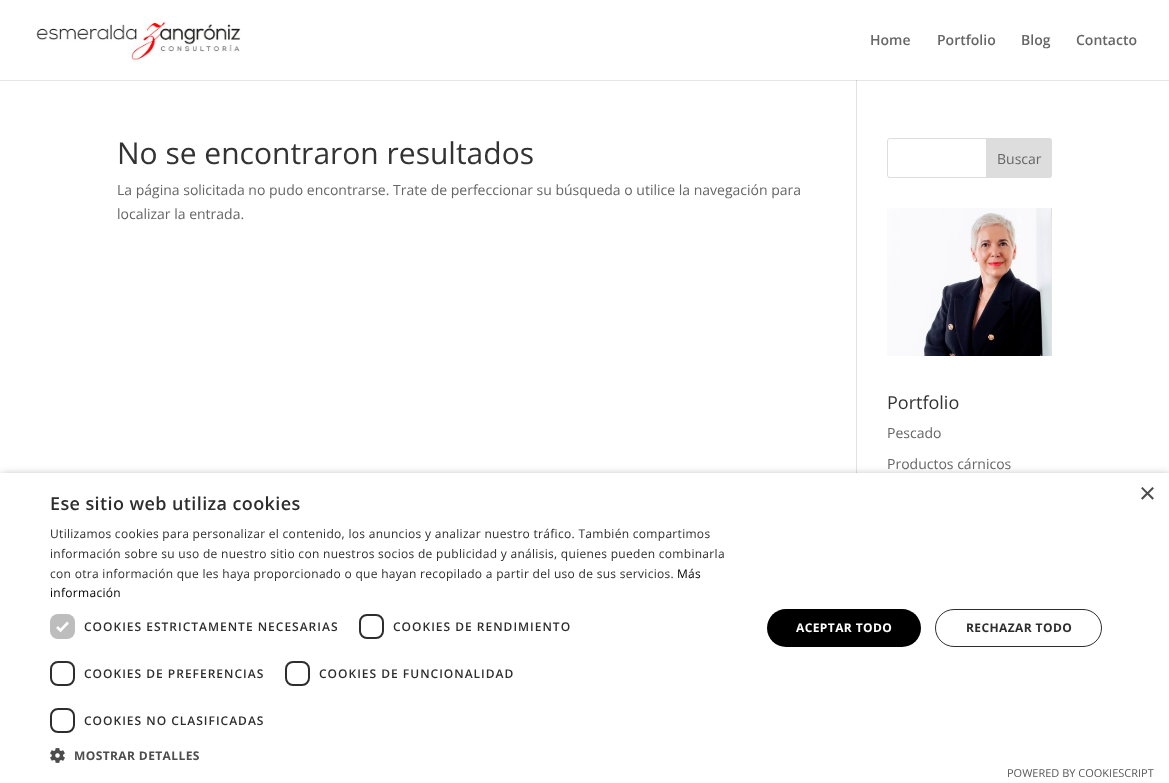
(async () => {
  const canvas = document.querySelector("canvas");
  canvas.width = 1169;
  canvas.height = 783;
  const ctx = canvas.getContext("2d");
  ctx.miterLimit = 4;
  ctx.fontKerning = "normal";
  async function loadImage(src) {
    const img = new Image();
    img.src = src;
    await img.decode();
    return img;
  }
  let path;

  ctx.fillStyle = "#ffffff";
  ctx.fillRect(0, 0, 1169, 783);
  ctx.fillStyle = "#e6e6e6";
  ctx.fillRect(0, 80, 1169, 1);
  ctx.drawImage(await loadImage("img/1.png"), 36, 21, 205, 41);
  ctx.fillStyle = "#e2e2e2";
  ctx.fillRect(856, 80, 1, 393);
  ctx.fillStyle = "#cbcbcb";
  ctx.fillRect(856, 80, 1, 1);
  ctx.beginPath();
  ctx.roundRect(887.5, 138.5, 164, 39, 2.5);
  ctx.strokeStyle = "#dddddd";
  ctx.stroke();
  ctx.fillStyle = "#dddddd";
  ctx.beginPath();
  ctx.roundRect(986.5, 138.5, 65, 39, [0, 2.5, 2.5, 0]);
  ctx.fill();
  ctx.stroke();
  ctx.drawImage(await loadImage("img/2.png"), 887, 208, 165, 148);
  ctx.fillStyle = "rgba(0, 0, 0, 0.35)";
  ctx.filter = "blur(4px)";
  ctx.beginPath();
  ctx.rect(1, 475, 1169, 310);
  ctx.fill();
  ctx.filter = "none";
  ctx.fillStyle = "#ffffff";
  ctx.fillRect(0, 473, 1169, 310);
  ctx.fillStyle = "#bdbdbd";
  ctx.beginPath();
  ctx.roundRect(50, 614, 25, 25, 8);
  ctx.fill();
  path = new Path2D("M57 627L60.5 630.5L68 622.5");
  ctx.strokeStyle = "#ffffff";
  ctx.lineWidth = 2.6;
  ctx.stroke(path);
  ctx.beginPath();
  ctx.roundRect(360, 615, 23, 23, 7);
  ctx.strokeStyle = "#2d2d2d";
  ctx.lineWidth = 2;
  ctx.stroke();
  ctx.beginPath();
  ctx.roundRect(51, 662, 23, 23, 7);
  ctx.stroke();
  ctx.beginPath();
  ctx.roundRect(286, 662, 23, 23, 7);
  ctx.stroke();
  ctx.beginPath();
  ctx.roundRect(51, 709, 23, 23, 7);
  ctx.stroke();
  ctx.drawImage(await loadImage("img/3.png"), 50, 748, 15, 15);
  ctx.fillStyle = "#000000";
  ctx.beginPath();
  ctx.roundRect(767, 609, 154, 38, 19);
  ctx.fill();
  ctx.beginPath();
  ctx.roundRect(935.5, 609.5, 166, 37, 18.5);
  ctx.lineWidth = 1;
  ctx.stroke();
  ctx.font = "600 14px Open Sans";
  ctx.fillStyle = "#666666";
  for (const [text, x, y] of [
    ["Home", 870, 45],
    ["Portfolio", 937, 45],
    ["Blog", 1021, 45],
    ["Contacto", 1076, 45],
  ]) {
    ctx.fillText(text, x, y);
  }
  ctx.font = "30px Open Sans";
  ctx.fillStyle = "#333333";
  ctx.fillText("No se encontraron resultados", 117, 164);
  ctx.font = "14px Open Sans";
  ctx.fillStyle = "#666666";
  for (const [text, x, y] of [
    ["La página solicitada no pudo encontrarse. Trate de perfeccionar su búsqueda o utilice la navegación para", 117, 195],
    ["localizar la entrada.", 117, 219],
    ["Buscar", 997, 164],
  ]) {
    ctx.fillText(text, x, y);
  }
  ctx.font = "18px Open Sans";
  ctx.fillStyle = "#333333";
  ctx.fillText("Portfolio", 887, 409);
  ctx.font = "14px Open Sans";
  ctx.fillStyle = "#666666";
  ctx.fillText("Pescado", 887, 438);
  ctx.fillText("Productos cárnicos", 887, 469);
  ctx.font = "29px Liberation Sans";
  ctx.fillStyle = "#4d4d4d";
  ctx.fillText("×", 1139, 503);
  ctx.letterSpacing = "0.4px";
  ctx.font = "600 18px Open Sans";
  ctx.fillStyle = "#2d2d2d";
  ctx.fillText("Ese sitio web utiliza cookies", 50, 510);
  ctx.letterSpacing = "0.3px";
  ctx.font = "12px Open Sans";
  for (const [text, x, y] of [
    ["Utilizamos cookies para personalizar el contenido, los anuncios y analizar nuestro tráfico. También compartimos", 50, 538],
    ["información sobre su uso de nuestro sitio con nuestros socios de publicidad y análisis, quienes pueden combinarla", 50, 558],
    ["con otra información que les haya proporcionado o que hayan recopilado a partir del uso de sus servicios.", 50, 578],
  ]) {
    ctx.fillText(text, x, y);
  }
  ctx.fillStyle = "#000000";
  ctx.fillText("Más", 677, 578);
  ctx.fillText("información", 50, 597);
  ctx.letterSpacing = "1px";
  ctx.font = "600 12px Open Sans";
  ctx.fillStyle = "#2d2d2d";
  for (const [text, x, y] of [
    ["COOKIES ESTRICTAMENTE NECESARIAS", 84, 631],
    ["COOKIES DE RENDIMIENTO", 393, 631],
    ["COOKIES DE PREFERENCIAS", 84, 678],
    ["COOKIES DE FUNCIONALIDAD", 319, 678],
    ["COOKIES NO CLASIFICADAS", 84, 725],
  ]) {
    ctx.fillText(text, x, y);
  }
  ctx.letterSpacing = "0.4px";
  ctx.font = "bold 12px Open Sans";
  ctx.fillStyle = "#4d4d4d";
  ctx.fillText("MOSTRAR DETALLES", 74, 760);
  ctx.fillStyle = "#ffffff";
  ctx.fillText("ACEPTAR TODO", 796, 632);
  ctx.fillStyle = "#2d2d2d";
  ctx.fillText("RECHAZAR TODO", 966, 632);
  ctx.letterSpacing = "0px";
  ctx.font = "11px Open Sans";
  ctx.fillStyle = "#575757";
  ctx.fillText("POWERED BY COOKIESCRIPT", 1007, 777);
})();
